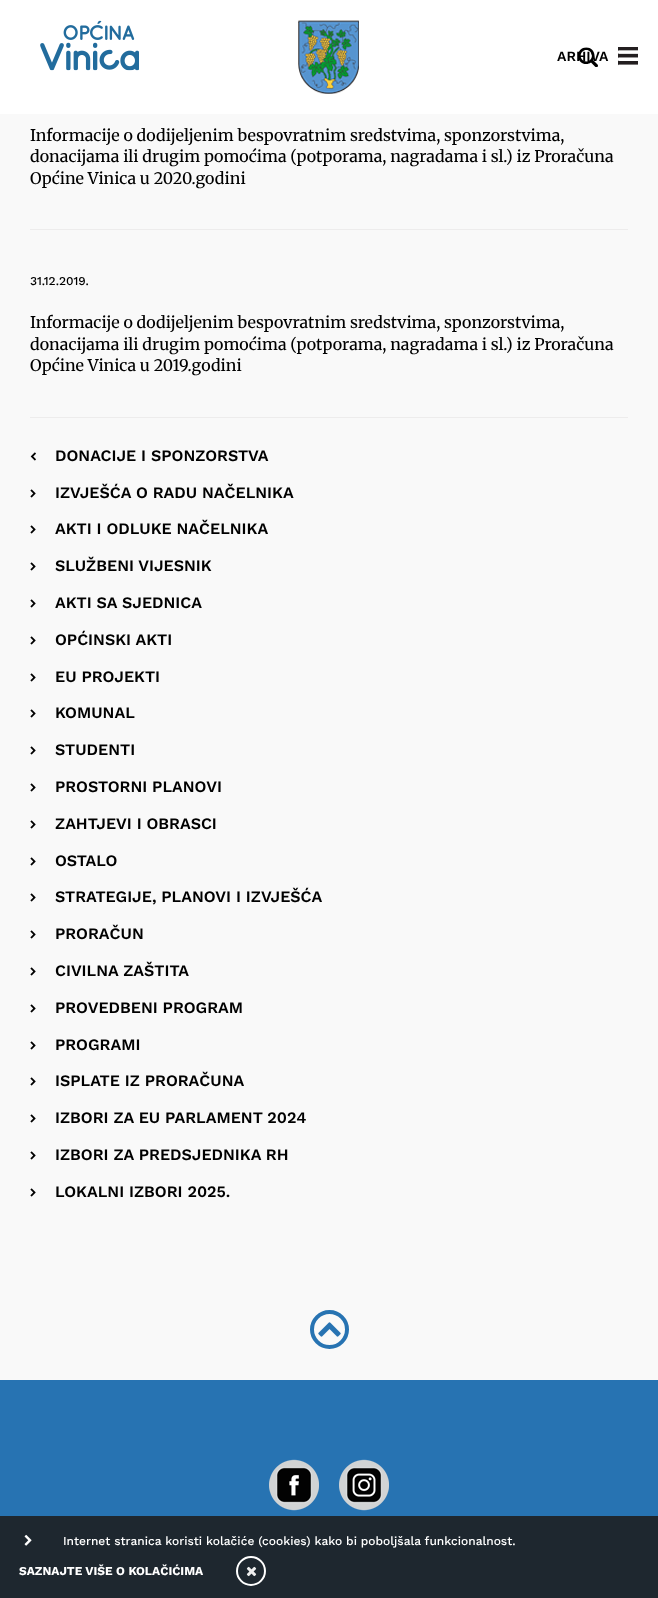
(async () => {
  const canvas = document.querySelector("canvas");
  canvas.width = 658;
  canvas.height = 1598;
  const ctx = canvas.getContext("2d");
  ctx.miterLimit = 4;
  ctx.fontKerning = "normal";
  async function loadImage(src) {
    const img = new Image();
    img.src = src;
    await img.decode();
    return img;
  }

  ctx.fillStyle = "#f9f9f9";
  ctx.fillRect(0, 0, 658, 1598);
  ctx.fillStyle = "#ffffff";
  ctx.fillRect(0, 0, 658, 114);
  ctx.drawImage(await loadImage("img/1.png"), 40, 20, 99, 51);
  ctx.drawImage(await loadImage("img/2.png"), 298, 20, 61, 74);
  ctx.fillStyle = "#231f20";
  ctx.fillRect(618, 47, 20, 19);
  ctx.drawImage(await loadImage("img/4.png"), 618, 50, 20, 17);
  ctx.fillStyle = "#edecec";
  ctx.fillRect(30, 229, 598, 1);
  ctx.fillRect(30, 417, 598, 1);
  ctx.drawImage(await loadImage("img/5.png"), 30, 452, 6, 9);
  ctx.drawImage(await loadImage("img/6.png"), 30, 489, 6, 9);
  ctx.drawImage(await loadImage("img/6.png"), 30, 525, 6, 9);
  ctx.drawImage(await loadImage("img/6.png"), 30, 562, 6, 9);
  ctx.drawImage(await loadImage("img/6.png"), 30, 599, 6, 9);
  ctx.drawImage(await loadImage("img/6.png"), 30, 636, 6, 9);
  ctx.drawImage(await loadImage("img/6.png"), 30, 673, 6, 9);
  ctx.drawImage(await loadImage("img/6.png"), 30, 709, 6, 9);
  ctx.drawImage(await loadImage("img/6.png"), 30, 746, 6, 9);
  ctx.drawImage(await loadImage("img/6.png"), 30, 783, 6, 9);
  ctx.drawImage(await loadImage("img/6.png"), 30, 820, 6, 9);
  ctx.drawImage(await loadImage("img/6.png"), 30, 857, 6, 9);
  ctx.drawImage(await loadImage("img/6.png"), 30, 893, 6, 9);
  ctx.drawImage(await loadImage("img/6.png"), 30, 930, 6, 9);
  ctx.drawImage(await loadImage("img/6.png"), 30, 967, 6, 9);
  ctx.drawImage(await loadImage("img/6.png"), 30, 1004, 6, 9);
  ctx.drawImage(await loadImage("img/6.png"), 30, 1041, 6, 9);
  ctx.drawImage(await loadImage("img/6.png"), 30, 1077, 6, 9);
  ctx.drawImage(await loadImage("img/6.png"), 30, 1114, 6, 9);
  ctx.drawImage(await loadImage("img/6.png"), 30, 1151, 6, 9);
  ctx.drawImage(await loadImage("img/6.png"), 30, 1188, 6, 9);
  ctx.fillStyle = "#2773b2";
  ctx.fillRect(0, 1380, 658, 136);
  ctx.fillStyle = "#1e272f";
  ctx.fillRect(0, 1516, 658, 82);
  ctx.beginPath();
  ctx.arc(329.5, 1329.5, 17.5, 0, Math.PI * 2);
  ctx.strokeStyle = "#2773b2";
  ctx.lineWidth = 4;
  ctx.stroke();
  ctx.drawImage(await loadImage("img/7.png"), 318, 1322, 23, 15);
  ctx.drawImage(await loadImage("img/8.png"), 269, 1459, 50, 52);
  ctx.drawImage(await loadImage("img/9.png"), 339, 1459, 50, 52);
  ctx.drawImage(await loadImage("img/10.png"), 24, 1534, 8, 12);
  ctx.beginPath();
  ctx.arc(251, 1571, 14, 0, Math.PI * 2);
  ctx.strokeStyle = "#ffffff";
  ctx.lineWidth = 2;
  ctx.stroke();
  ctx.drawImage(await loadImage("img/11.png"), 246, 1566, 11, 11);
  ctx.font = "600 14px Work Sans";
  ctx.fillStyle = "#000000";
  ctx.fillText("ARHIVA", 557, 61);
  ctx.drawImage(await loadImage("img/3.png"), 578, 47, 20, 20);
  ctx.font = "500 16px Merriweather";
  for (const [text, x, y] of [
    ["Informacije o dodijeljenim bespovratnim sredstvima, sponzorstvima,", 30, 141],
    ["donacijama ili drugim pomoćima (potporama, nagradama i sl.) iz Proračuna", 30, 162],
    ["Općine Vinica u 2020.godini", 30, 184],
  ]) {
    ctx.fillText(text, x, y);
  }
  ctx.font = "500 12px Work Sans";
  ctx.fillText("31.12.2019.", 30, 285);
  ctx.font = "500 16px Merriweather";
  for (const [text, x, y] of [
    ["Informacije o dodijeljenim bespovratnim sredstvima, sponzorstvima,", 30, 328],
    ["donacijama ili drugim pomoćima (potporama, nagradama i sl.) iz Proračuna", 30, 350],
    ["Općine Vinica u 2019.godini", 30, 371],
  ]) {
    ctx.fillText(text, x, y);
  }
  ctx.font = "600 16px Work Sans";
  for (const [text, x, y] of [
    ["DONACIJE I SPONZORSTVA", 55, 461],
    ["IZVJEŠĆA O RADU NAČELNIKA", 55, 498],
    ["AKTI I ODLUKE NAČELNIKA", 55, 534],
    ["SLUŽBENI VIJESNIK", 55, 571],
    ["AKTI SA SJEDNICA", 55, 608],
    ["OPĆINSKI AKTI", 55, 645],
    ["EU PROJEKTI", 55, 682],
    ["KOMUNAL", 55, 718],
    ["STUDENTI", 55, 755],
    ["PROSTORNI PLANOVI", 55, 792],
    ["ZAHTJEVI I OBRASCI", 55, 829],
    ["OSTALO", 55, 866],
    ["STRATEGIJE, PLANOVI I IZVJEŠĆA", 55, 902],
    ["PRORAČUN", 55, 939],
    ["CIVILNA ZAŠTITA", 55, 976],
    ["PROVEDBENI PROGRAM", 55, 1013],
    ["PROGRAMI", 55, 1050],
    ["ISPLATE IZ PRORAČUNA", 55, 1086],
    ["IZBORI ZA EU PARLAMENT 2024", 55, 1123],
    ["IZBORI ZA PREDSJEDNIKA RH", 55, 1160],
    ["LOKALNI IZBORI 2025.", 55, 1197],
  ]) {
    ctx.fillText(text, x, y);
  }
  ctx.font = "500 12px Work Sans";
  ctx.fillStyle = "#ffffff";
  ctx.fillText("Internet stranica koristi kolačiće (cookies) kako bi poboljšala funkcionalnost.", 63, 1545);
  ctx.font = "bold 12px Work Sans";
  ctx.fillText("SAZNAJTE VIŠE O KOLAČIĆIMA", 19, 1575);
})();
